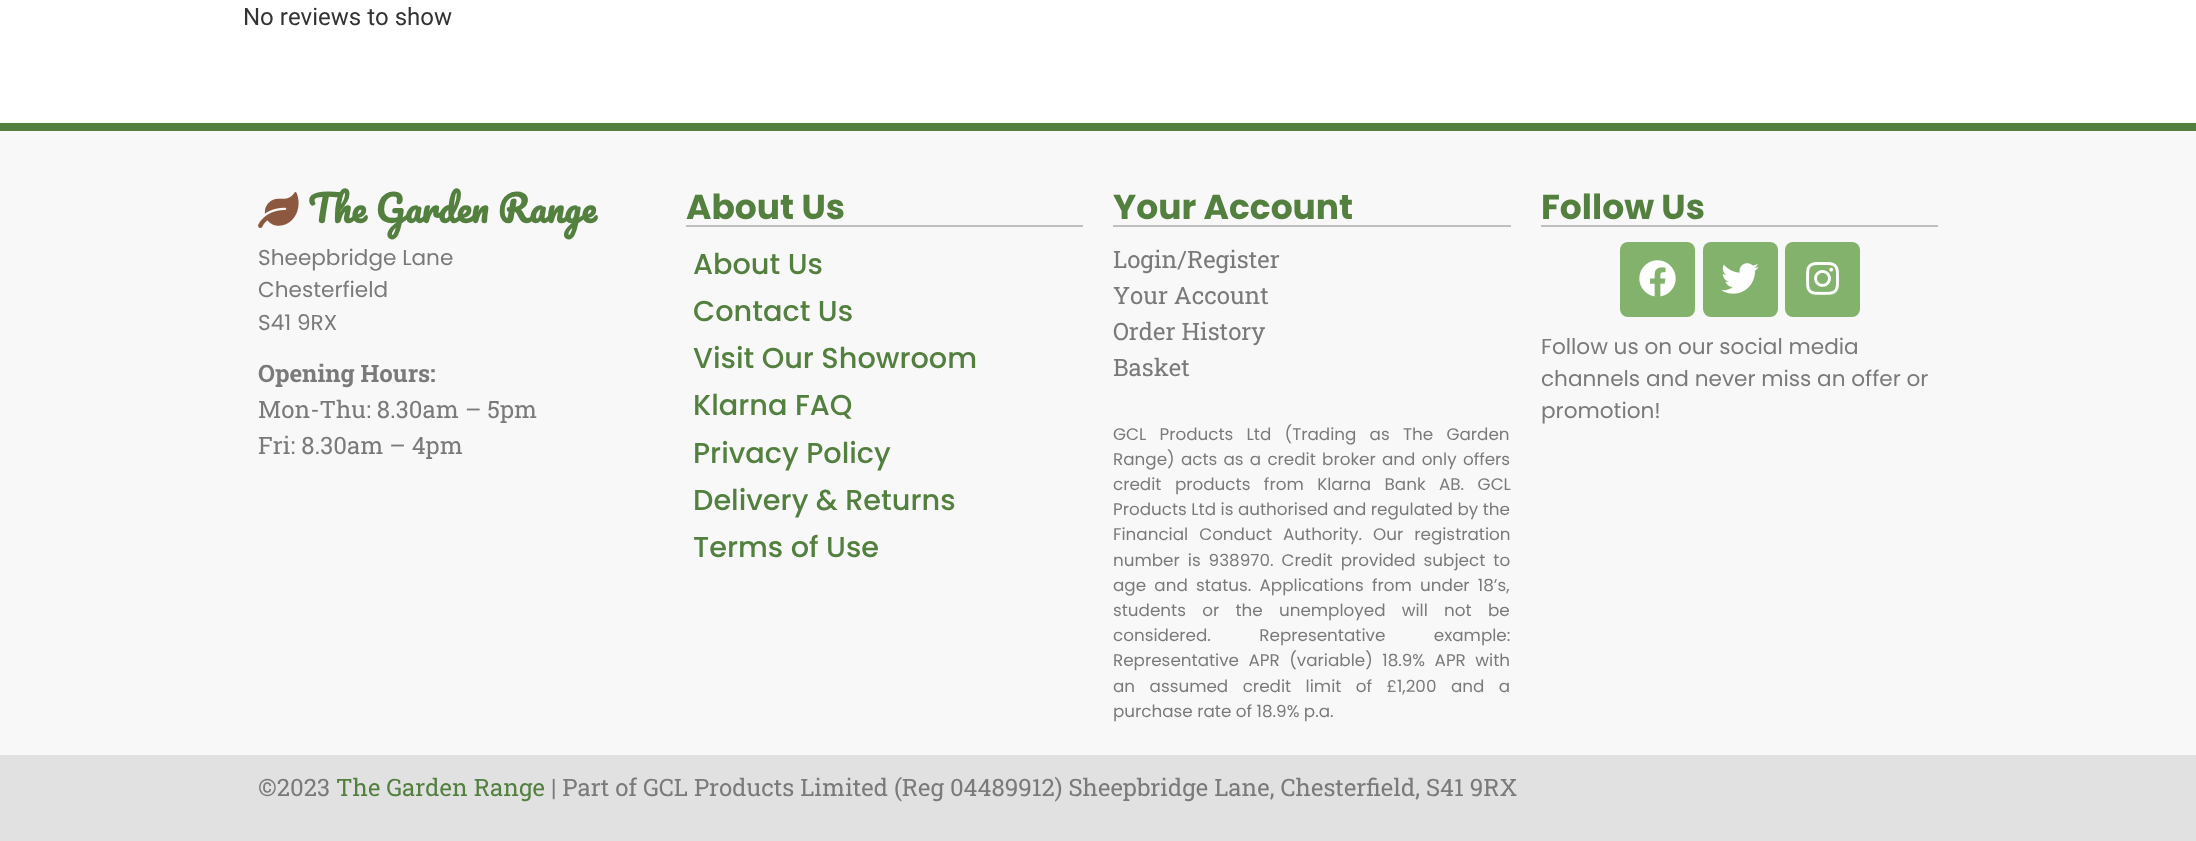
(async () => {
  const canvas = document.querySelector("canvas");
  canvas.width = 2196;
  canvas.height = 841;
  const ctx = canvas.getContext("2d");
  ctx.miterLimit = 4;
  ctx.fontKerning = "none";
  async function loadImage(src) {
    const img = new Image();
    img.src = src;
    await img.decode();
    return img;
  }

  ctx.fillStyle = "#ffffff";
  ctx.fillRect(0, 0, 2196, 841);
  ctx.fillStyle = "#f8f8f8";
  ctx.fillRect(0, 131, 2196, 624);
  ctx.fillStyle = "#53803f";
  ctx.fillRect(0, 123, 2196, 8);
  ctx.drawImage(await loadImage("img/1.png"), 258, 192, 41, 36);
  for (const [x, y, w, h, color] of [
    [686, 225, 397, 2, "#bfbfbf"],
    [1113, 225, 398, 2, "#bfbfbf"],
    [1541, 225, 397, 2, "#bfbfbf"],
  ]) {
    ctx.fillStyle = color;
    ctx.fillRect(x, y, w, h);
  }
  ctx.fillStyle = "#83b26c";
  ctx.beginPath();
  ctx.roundRect(1620, 242, 75, 75, 8);
  ctx.fill();
  ctx.drawImage(await loadImage("img/2.png"), 1639, 260, 37, 37);
  ctx.beginPath();
  ctx.roundRect(1703, 242, 75, 75, 8);
  ctx.fill();
  ctx.drawImage(await loadImage("img/3.png"), 1721, 263, 38, 31);
  ctx.beginPath();
  ctx.roundRect(1785, 242, 75, 75, 8);
  ctx.fill();
  ctx.drawImage(await loadImage("img/4.png"), 1806, 261, 33, 34);
  ctx.fillStyle = "#e1e1e1";
  ctx.fillRect(0, 755, 2196, 86);
  ctx.font = "24px Roboto";
  ctx.fillStyle = "#333333";
  ctx.fillText("No reviews to show", 243, 25);
  ctx.font = "bold 36px Pacifico";
  ctx.fillStyle = "#53803f";
  ctx.fillText("The Garden Range", 308, 223);
  ctx.font = "21.6px Poppins";
  ctx.fillStyle = "#7a7a7a";
  for (const [text, x, y] of [
    ["Sheepbridge Lane", 258, 265],
    ["Chesterfield", 258, 297],
    ["S41 9RX", 258, 330],
  ]) {
    ctx.fillText(text, x, y);
  }
  ctx.font = "bold 24px Roboto Slab";
  ctx.fillText("Opening Hours:", 258, 382);
  ctx.font = "24px Roboto Slab";
  ctx.fillText("Mon-Thu: 8.30am – 5pm", 258, 418);
  ctx.fillText("Fri: 8.30am – 4pm", 258, 454);
  ctx.font = "bold 34.5px Poppins";
  ctx.fillStyle = "#53803f";
  ctx.fillText("About Us", 686, 219);
  ctx.font = "500 28.75px Poppins";
  for (const [text, x, y] of [
    ["About Us", 693, 274],
    ["Contact Us", 693, 321],
    ["Visit Our Showroom", 693, 368],
    ["Klarna FAQ", 693, 415],
    ["Privacy Policy", 693, 463],
    ["Delivery & Returns", 693, 510],
    ["Terms of Use", 693, 557],
  ]) {
    ctx.fillText(text, x, y);
  }
  ctx.font = "bold 34.5px Poppins";
  ctx.fillText("Your Account", 1113, 219);
  ctx.font = "24px Roboto Slab";
  ctx.fillStyle = "#7a7a7a";
  for (const [text, x, y] of [
    ["Login/Register", 1113, 268],
    ["Your Account", 1113, 304],
    ["Order History", 1113, 340],
    ["Basket", 1113, 376],
  ]) {
    ctx.fillText(text, x, y);
  }
  ctx.wordSpacing = "8.75px";
  ctx.font = "16.8px Poppins";
  ctx.fillText("GCL Products Ltd (Trading as The Garden", 1113, 440);
  ctx.wordSpacing = "1.75px";
  ctx.fillText("Range) acts as a credit broker and only offers", 1113, 465);
  ctx.wordSpacing = "9px";
  ctx.fillText("credit products from Klarna Bank AB. GCL", 1113, 490);
  ctx.wordSpacing = "0px";
  ctx.fillText("Products Ltd is authorised and regulated by the", 1113, 515);
  ctx.wordSpacing = "6.5px";
  ctx.fillText("Financial Conduct Authority. Our registration", 1113, 540);
  ctx.wordSpacing = "3.5px";
  ctx.fillText("number is 938970. Credit provided subject to", 1113, 566);
  ctx.wordSpacing = "3.75px";
  ctx.fillText("age and status. Applications from under 18’s,", 1113, 591);
  ctx.wordSpacing = "11.75px";
  ctx.fillText("students or the unemployed will not be", 1113, 616);
  ctx.wordSpacing = "44px";
  ctx.fillText("considered. Representative example:", 1113, 641);
  ctx.wordSpacing = "5px";
  ctx.fillText("Representative APR (variable) 18.9% APR with", 1113, 666);
  ctx.wordSpacing = "10px";
  ctx.fillText("an assumed credit limit of £1,200 and a", 1113, 692);
  ctx.wordSpacing = "0px";
  ctx.fillText("purchase rate of 18.9% p.a.", 1113, 717);
  ctx.font = "bold 34.5px Poppins";
  ctx.fillStyle = "#53803f";
  ctx.fillText("Follow Us", 1541, 219);
  ctx.font = "21.6px Poppins";
  ctx.fillStyle = "#7a7a7a";
  for (const [text, x, y] of [
    ["Follow us on our social media", 1541, 354],
    ["channels and never miss an offer or", 1541, 386],
    ["promotion!", 1541, 418],
  ]) {
    ctx.fillText(text, x, y);
  }
  ctx.font = "24px Roboto Slab";
  ctx.fillText("©2023", 258, 796);
  ctx.fillStyle = "#53803f";
  ctx.fillText("The Garden Range", 336, 796);
  ctx.fillStyle = "#7a7a7a";
  ctx.fillText("| Part of GCL Products Limited (Reg 04489912) Sheepbridge Lane, Chesterfield, S41 9RX", 551, 796);
})();
